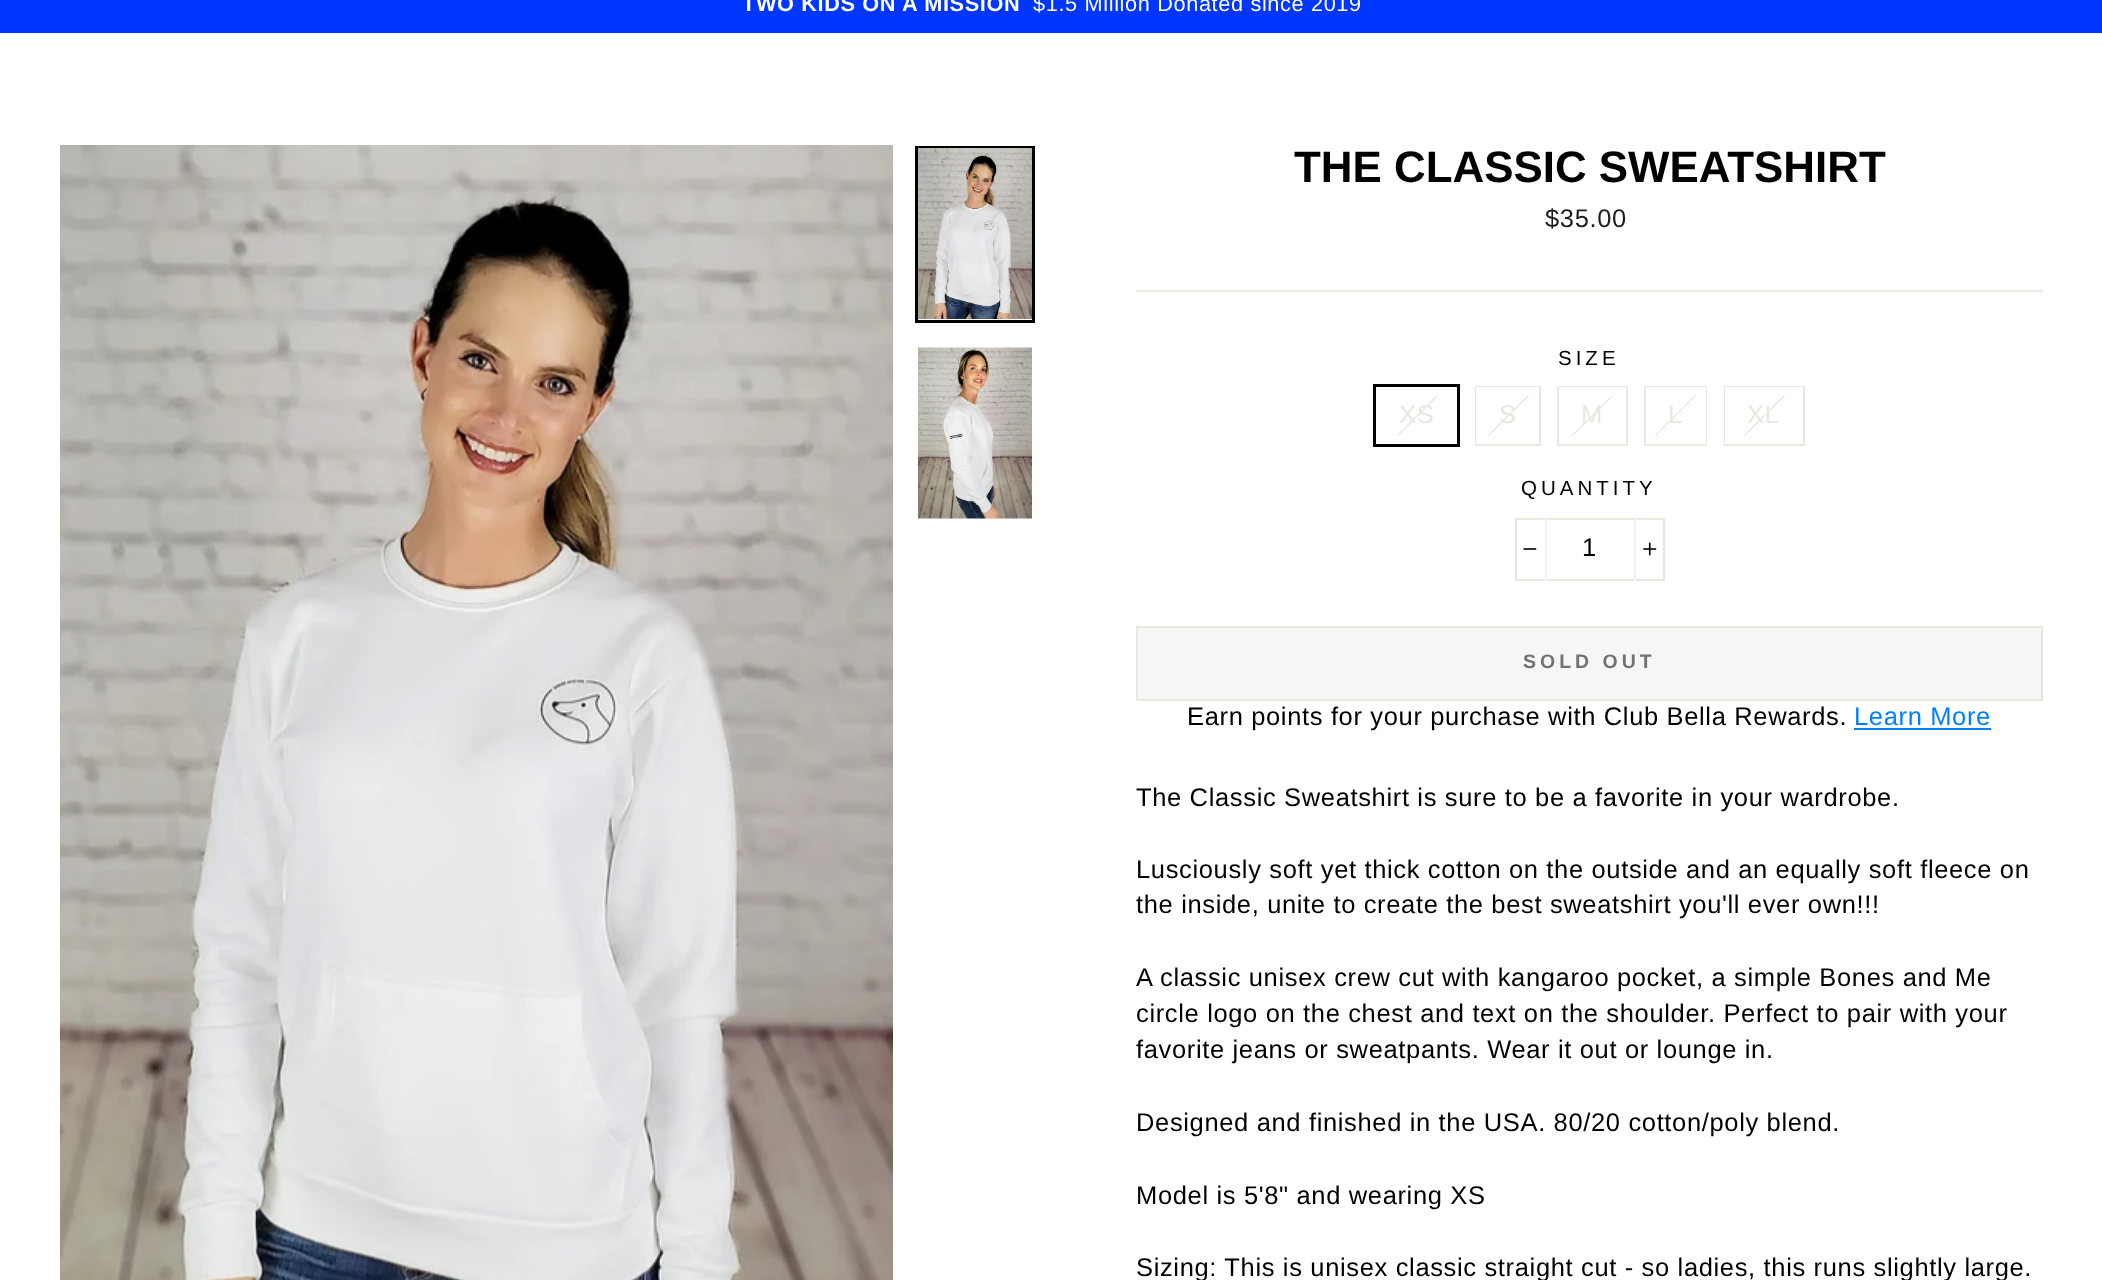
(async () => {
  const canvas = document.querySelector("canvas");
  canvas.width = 2102;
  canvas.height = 1280;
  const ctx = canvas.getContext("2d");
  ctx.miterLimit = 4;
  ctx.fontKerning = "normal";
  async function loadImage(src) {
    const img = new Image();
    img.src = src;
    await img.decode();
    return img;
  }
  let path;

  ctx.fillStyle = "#ffffff";
  ctx.fillRect(0, 0, 2102, 1280);
  ctx.fillStyle = "#0036ff";
  ctx.fillRect(0, 0, 2102, 33);
  ctx.drawImage(await loadImage("img/1.png"), 60, 145, 833, 1135);
  ctx.strokeStyle = "#000000";
  ctx.lineWidth = 3;
  ctx.strokeRect(916.5, 147.5, 117, 174);
  ctx.drawImage(await loadImage("img/2.png"), 918, 148, 114, 171);
  ctx.drawImage(await loadImage("img/3.png"), 918, 347, 114, 172);
  ctx.fillStyle = "#e8e8e1";
  ctx.fillRect(1136, 290, 907, 2);
  ctx.strokeRect(1374.5, 385.5, 84, 60);
  path = new Path2D("M1437 395L1438 396L1398 436L1397 435Z");
  ctx.fill(path);
  ctx.strokeStyle = "#e8e8e1";
  ctx.lineWidth = 2;
  ctx.strokeRect(1476, 387, 64, 58);
  ctx.fillStyle = "#ffffff";
  ctx.fillRect(1476, 387, 63, 57);
  ctx.fillStyle = "#e8e8e1";
  path = new Path2D("M1528 395L1529 396L1489 436L1488 435Z");
  ctx.fill(path);
  ctx.strokeRect(1558, 387, 69, 58);
  ctx.fillStyle = "#ffffff";
  ctx.fillRect(1559, 387, 67, 1);
  ctx.fillStyle = "#e8e8e1";
  path = new Path2D("M1612 395L1613 396L1573 436L1572 435Z");
  ctx.fill(path);
  ctx.strokeRect(1645, 387, 61, 58);
  ctx.fillStyle = "#ffffff";
  ctx.fillRect(1646, 387, 60, 57);
  ctx.fillStyle = "#e8e8e1";
  path = new Path2D("M1695 395L1696 396L1656 436L1655 435Z");
  ctx.fill(path);
  ctx.strokeRect(1725, 387, 79, 58);
  ctx.fillStyle = "#ffffff";
  ctx.fillRect(1725, 387, 78, 57);
  ctx.fillStyle = "#e8e8e1";
  path = new Path2D("M1784 395L1785 396L1745 436L1744 435Z");
  ctx.fill(path);
  ctx.strokeRect(1516, 519, 148, 61);
  ctx.fillStyle = "#f2f2f2";
  ctx.fillRect(1545, 518, 2, 63);
  ctx.drawImage(await loadImage("img/4.png"), 1523, 548, 14, 2);
  ctx.fillRect(1634, 518, 2, 63);
  ctx.drawImage(await loadImage("img/5.png"), 1643, 542, 14, 14);
  ctx.fillStyle = "#f6f6f6";
  ctx.beginPath();
  ctx.rect(1137, 627, 905, 73);
  ctx.fill();
  ctx.stroke();
  ctx.fillStyle = "#0080ff";
  ctx.fillRect(1854, 728, 137, 2);
  ctx.letterSpacing = "0.65px";
  ctx.font = "bold 21.7px Liberation Sans";
  ctx.fillStyle = "#ffffff";
  ctx.fillText("TWO KIDS ON A MISSION", 742, 11);
  ctx.font = "21.7px Liberation Sans";
  ctx.fillText("$1.5 Million Donated since 2019", 1033, 11);
  ctx.letterSpacing = "0px";
  ctx.font = "bold 43.9px Liberation Sans";
  ctx.fillStyle = "#000000";
  ctx.fillText("THE CLASSIC SWEATSHIRT", 1294, 182);
  ctx.letterSpacing = "0.65px";
  ctx.font = "25.5px Liberation Sans";
  ctx.fillStyle = "#1c1d1d";
  ctx.fillText("$35.00", 1545, 227);
  ctx.letterSpacing = "4px";
  ctx.font = "20.5px Liberation Sans";
  ctx.fillStyle = "#000000";
  ctx.fillText("SIZE", 1558, 365);
  ctx.letterSpacing = "0.65px";
  ctx.font = "25.5px Liberation Sans";
  ctx.fillStyle = "#e8e8e1";
  for (const [text, x, y] of [
    ["XS", 1399, 423],
    ["S", 1499, 423],
    ["M", 1581, 423],
    ["L", 1668, 423],
    ["XL", 1747, 423],
  ]) {
    ctx.fillText(text, x, y);
  }
  ctx.letterSpacing = "4px";
  ctx.font = "20.5px Liberation Sans";
  ctx.fillStyle = "#000000";
  ctx.fillText("QUANTITY", 1521, 495);
  ctx.letterSpacing = "0.65px";
  ctx.font = "25.5px Liberation Sans";
  ctx.fillText("1", 1582, 556);
  ctx.letterSpacing = "4px";
  ctx.font = "bold 19.5px Liberation Sans";
  ctx.fillStyle = "#717171";
  ctx.fillText("SOLD OUT", 1523, 668);
  ctx.letterSpacing = "0.65px";
  ctx.font = "25.5px Liberation Sans";
  ctx.fillStyle = "#000000";
  ctx.fillText("Earn points for your purchase with Club Bella Rewards.", 1187, 725);
  ctx.fillStyle = "#0080ff";
  ctx.fillText("Learn More", 1854, 725);
  ctx.fillStyle = "#000000";
  for (const [text, x, y] of [
    ["The Classic Sweatshirt is sure to be a favorite in your wardrobe.", 1136, 806],
    ["Lusciously soft yet thick cotton on the outside and an equally soft fleece on", 1136, 878],
    ["the inside, unite to create the best sweatshirt you'll ever own!!!", 1136, 913],
    ["A classic unisex crew cut with kangaroo pocket, a simple Bones and Me", 1136, 986],
    ["circle logo on the chest and text on the shoulder. Perfect to pair with your", 1136, 1022],
    ["favorite jeans or sweatpants. Wear it out or lounge in.", 1136, 1058],
    ["Designed and finished in the USA. 80/20 cotton/poly blend.", 1136, 1131],
    ["Model is 5'8\" and wearing XS", 1136, 1204],
    ["Sizing: This is unisex classic straight cut - so ladies, this runs slightly large.", 1136, 1276],
  ]) {
    ctx.fillText(text, x, y);
  }
})();
